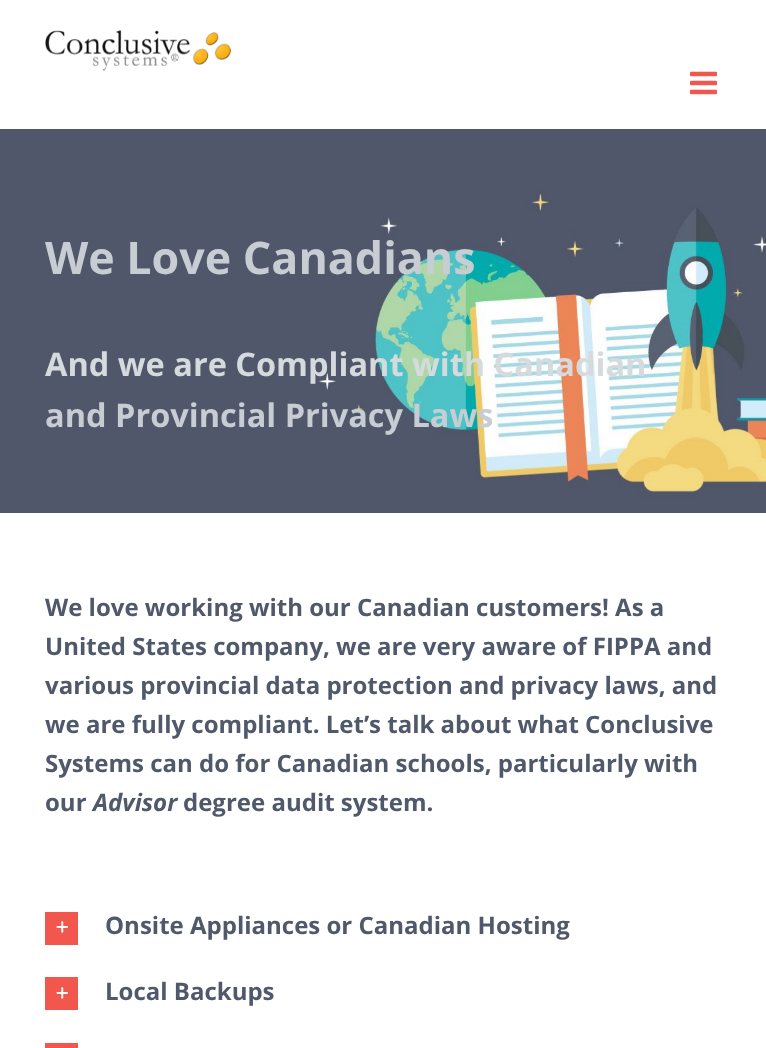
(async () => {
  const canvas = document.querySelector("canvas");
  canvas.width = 766;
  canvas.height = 1048;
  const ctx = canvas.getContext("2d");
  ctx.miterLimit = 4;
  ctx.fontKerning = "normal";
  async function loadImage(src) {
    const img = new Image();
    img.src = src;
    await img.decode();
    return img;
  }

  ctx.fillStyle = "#ffffff";
  ctx.fillRect(0, 0, 766, 1048);
  ctx.drawImage(await loadImage("img/1.png"), 45, 30, 186, 41);
  ctx.drawImage(await loadImage("img/2.png"), 690, 71, 27, 24);
  ctx.drawImage(await loadImage("img/3.png"), 0, 129, 766, 384);
  ctx.fillStyle = "#f1574d";
  ctx.fillRect(45, 912, 33, 33);
  ctx.drawImage(await loadImage("img/4.png"), 56, 921, 12, 12);
  ctx.fillRect(45, 977, 33, 33);
  ctx.drawImage(await loadImage("img/4.png"), 56, 987, 12, 12);
  ctx.fillRect(45, 1043, 33, 5);
  ctx.font = "bold 44.75px Open Sans";
  ctx.fillStyle = "#c7cdd2";
  ctx.fillText("We Love Canadians", 45, 274);
  ctx.font = "bold 32.5px Open Sans";
  ctx.fillStyle = "#d5dbdd";
  ctx.fillText("And we are Compliant with Canadian", 45, 376);
  ctx.fillStyle = "#c7cdd2";
  ctx.fillText("and Provincial Privacy Laws", 45, 427);
  ctx.font = "bold 24px Open Sans";
  ctx.fillStyle = "#50586b";
  for (const [text, x, y] of [
    ["We love working with our Canadian customers! As a", 45, 616],
    ["United States company, we are very aware of FIPPA and", 45, 655],
    ["various provincial data protection and privacy laws, and", 45, 694],
    ["we are fully compliant. Let’s talk about what Conclusive", 45, 733],
    ["Systems can do for Canadian schools, particularly with", 45, 772],
    ["our", 45, 811],
  ]) {
    ctx.fillText(text, x, y);
  }
  ctx.font = "italic bold 24px Open Sans";
  ctx.fillText("Advisor", 93, 811);
  ctx.font = "bold 24px Open Sans";
  for (const [text, x, y] of [
    ["degree audit system.", 183, 811],
    ["Onsite Appliances or Canadian Hosting", 105, 934],
    ["Local Backups", 105, 1000],
  ]) {
    ctx.fillText(text, x, y);
  }
})();
